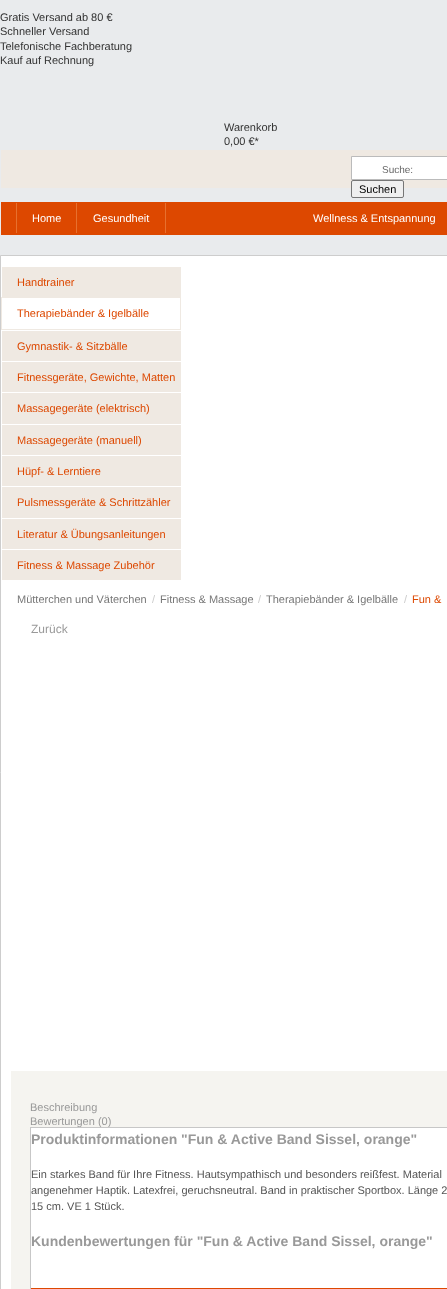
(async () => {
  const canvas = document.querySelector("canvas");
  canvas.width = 447;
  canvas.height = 1289;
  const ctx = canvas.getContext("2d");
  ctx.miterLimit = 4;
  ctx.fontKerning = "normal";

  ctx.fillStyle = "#e9ebed";
  ctx.fillRect(0, 0, 447, 1289);
  ctx.fillStyle = "#efe9e2";
  ctx.fillRect(1, 150, 446, 38);
  ctx.fillStyle = "#ffffff";
  ctx.beginPath();
  ctx.rect(351.5, 156.5, 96, 23);
  ctx.fill();
  ctx.strokeStyle = "#bbbbbb";
  ctx.stroke();
  ctx.fillStyle = "#efefef";
  ctx.beginPath();
  ctx.roundRect(351.5, 180.5, 52, 17, 1.5);
  ctx.fill();
  ctx.strokeStyle = "#767676";
  ctx.stroke();
  for (const [x, y, w, h, color] of [
    [1, 202, 446, 33, "#dd4800"],
    [76, 203, 1, 30, "#e7702e"],
    [16, 203, 1, 30, "#e7702e"],
    [165, 203, 1, 30, "#e7702e"],
  ]) {
    ctx.fillStyle = color;
    ctx.fillRect(x, y, w, h);
  }
  ctx.fillStyle = "#ffffff";
  ctx.beginPath();
  ctx.rect(0.5, 255.5, 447, 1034);
  ctx.fill();
  ctx.strokeStyle = "#cdcdcd";
  ctx.stroke();
  ctx.fillStyle = "#efe9e2";
  ctx.fillRect(2, 267, 179, 30);
  ctx.strokeStyle = "#efe9e2";
  ctx.strokeRect(1.5, 297.5, 179, 32);
  for (const [x, y, w, h, color] of [
    [2, 331, 179, 30, "#efe9e2"],
    [2, 362, 179, 30, "#efe9e2"],
    [2, 393, 179, 31, "#efe9e2"],
    [2, 425, 179, 30, "#efe9e2"],
    [2, 456, 179, 30, "#efe9e2"],
    [2, 487, 179, 31, "#efe9e2"],
    [2, 519, 179, 30, "#efe9e2"],
    [2, 550, 179, 30, "#efe9e2"],
    [11, 1071, 436, 218, "#f5f4f0"],
    [31, 1128, 416, 160, "#ffffff"],
  ]) {
    ctx.fillStyle = color;
    ctx.fillRect(x, y, w, h);
  }
  ctx.font = "11px Liberation Sans";
  ctx.fillStyle = "#333333";
  for (const [text, x, y] of [
    ["Gratis Versand ab 80 €", 0, 21],
    ["Schneller Versand", 0, 35],
    ["Telefonische Fachberatung", 0, 50],
    ["Kauf auf Rechnung", 0, 64],
    ["Warenkorb", 224, 131],
    ["0,00 €*", 224, 145],
  ]) {
    ctx.fillText(text, x, y);
  }
  ctx.font = "10px Liberation Sans";
  ctx.fillStyle = "#666666";
  ctx.fillText("Suche:", 382, 173);
  ctx.font = "11px Liberation Sans";
  ctx.fillStyle = "#000000";
  ctx.fillText("Suchen", 359, 193);
  ctx.fillStyle = "#ffffff";
  for (const [text, x, y] of [
    ["Home", 32, 222],
    ["Gesundheit", 93, 222],
    ["Wellness & Entspannung", 313, 222],
  ]) {
    ctx.fillText(text, x, y);
  }
  ctx.fillStyle = "#dd4800";
  for (const [text, x, y] of [
    ["Handtrainer", 17, 286],
    ["Therapiebänder & Igelbälle", 17, 317],
    ["Gymnastik- & Sitzbälle", 17, 350],
    ["Fitnessgeräte, Gewichte, Matten", 17, 381],
    ["Massagegeräte (elektrisch)", 17, 412],
    ["Massagegeräte (manuell)", 17, 444],
    ["Hüpf- & Lerntiere", 17, 475],
    ["Pulsmessgeräte & Schrittzähler", 17, 506],
    ["Literatur & Übungsanleitungen", 17, 538],
    ["Fitness & Massage Zubehör", 17, 569],
  ]) {
    ctx.fillText(text, x, y);
  }
  ctx.fillStyle = "#777777";
  ctx.fillText("Mütterchen und Väterchen", 17, 603);
  ctx.fillStyle = "#cccccc";
  ctx.fillText("/", 152, 603);
  ctx.fillStyle = "#777777";
  ctx.fillText("Fitness & Massage", 160, 603);
  ctx.fillStyle = "#cccccc";
  ctx.fillText("/", 258, 603);
  ctx.fillStyle = "#777777";
  ctx.fillText("Therapiebänder & Igelbälle", 266, 603);
  ctx.fillStyle = "#cccccc";
  ctx.fillText("/", 404, 603);
  ctx.fillStyle = "#dd4800";
  ctx.fillText("Fun &", 412, 603);
  ctx.font = "12px Liberation Sans";
  ctx.fillStyle = "#999999";
  ctx.fillText("Zurück", 31, 633);
  ctx.font = "11px Liberation Sans";
  ctx.fillText("Beschreibung", 30, 1111);
  ctx.fillText("Bewertungen (0)", 30, 1125);
  ctx.strokeStyle = "#c7c7c7";
  ctx.strokeRect(30.5, 1127.5, 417, 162);
  ctx.font = "bold 14px Liberation Sans";
  ctx.fillText("Produktinformationen \"Fun & Active Band Sissel, orange\"", 31, 1144);
  ctx.font = "11px Liberation Sans";
  ctx.fillStyle = "#555555";
  for (const [text, x, y] of [
    ["Ein starkes Band für Ihre Fitness. Hautsympathisch und besonders reißfest. Material", 31, 1178],
    ["angenehmer Haptik. Latexfrei, geruchsneutral. Band in praktischer Sportbox. Länge 2", 31, 1194],
    ["15 cm. VE 1 Stück.", 31, 1210],
  ]) {
    ctx.fillText(text, x, y);
  }
  ctx.font = "bold 14px Liberation Sans";
  ctx.fillStyle = "#999999";
  ctx.fillText("Kundenbewertungen für \"Fun & Active Band Sissel, orange\"", 31, 1246);
  ctx.strokeStyle = "#dd4800";
  ctx.lineWidth = 2;
  ctx.strokeRect(32, 1289, 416, 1);
})();
